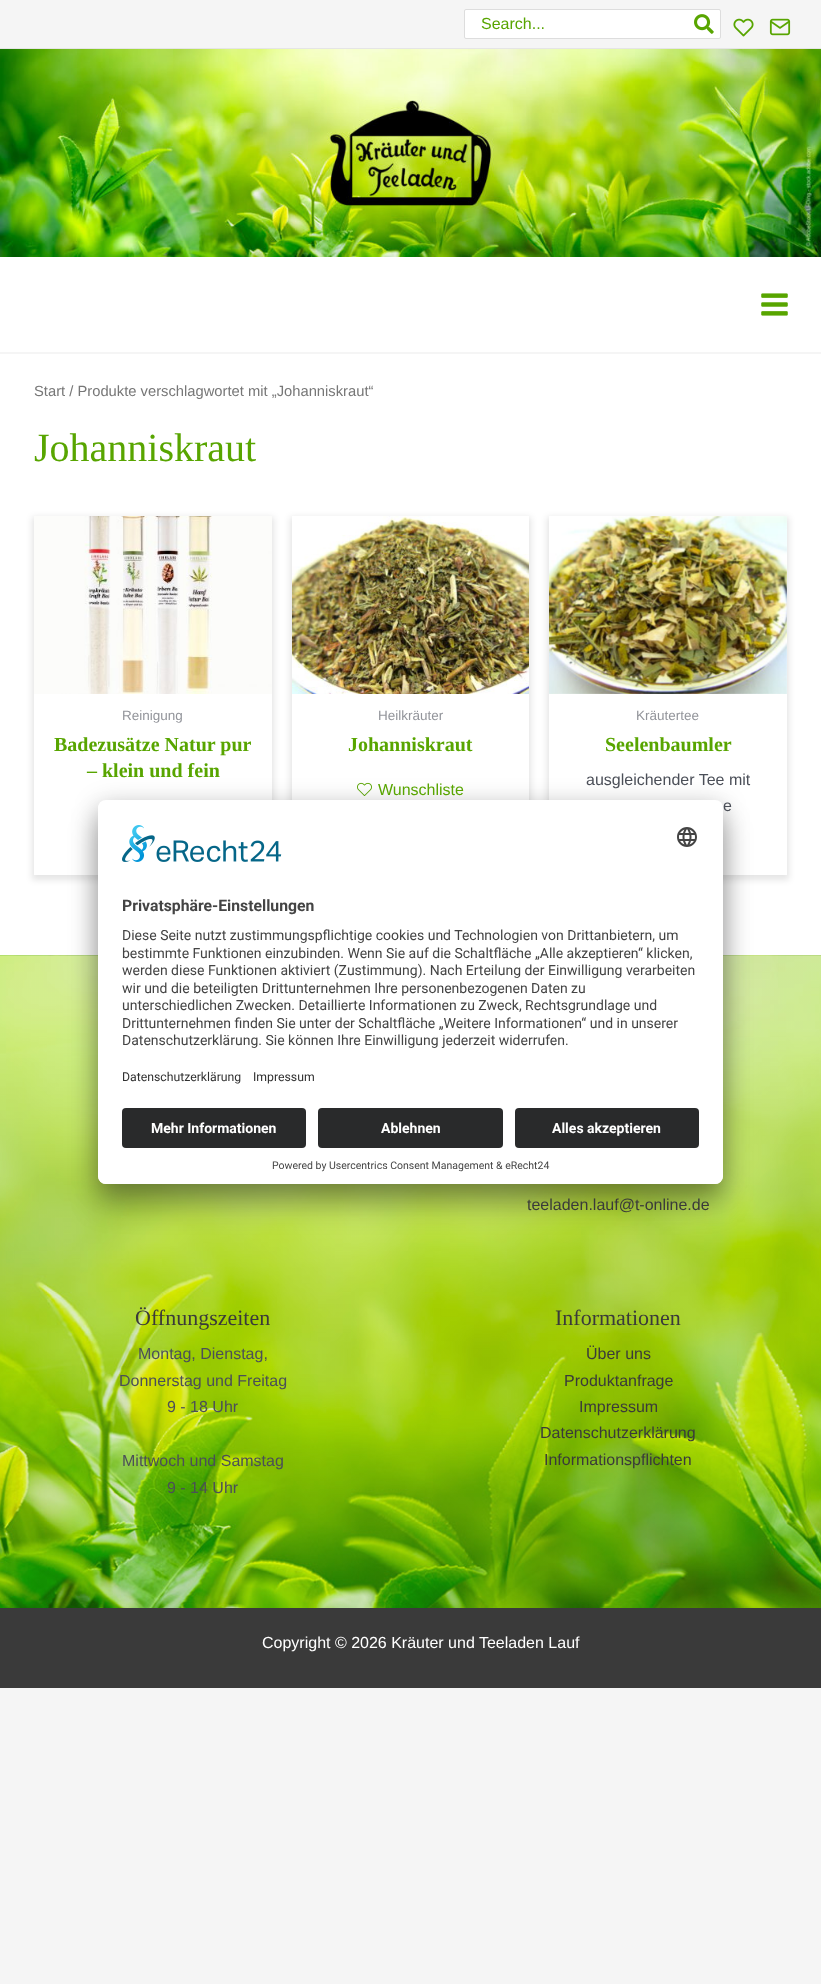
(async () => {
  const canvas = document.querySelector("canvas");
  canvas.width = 821;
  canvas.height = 1984;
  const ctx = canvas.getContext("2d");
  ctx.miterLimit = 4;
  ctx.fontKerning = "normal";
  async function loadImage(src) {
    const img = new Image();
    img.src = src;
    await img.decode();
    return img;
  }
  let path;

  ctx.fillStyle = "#f5f5f5";
  ctx.fillRect(0, 0, 821, 1984);
  ctx.fillStyle = "#e5e5e5";
  ctx.fillRect(0, 48, 821, 1);
  ctx.fillStyle = "#ffffff";
  ctx.beginPath();
  ctx.roundRect(464.5, 9.5, 256, 29, 1.5);
  ctx.fill();
  ctx.strokeStyle = "#dddddd";
  ctx.stroke();
  ctx.drawImage(await loadImage("img/1.png"), 694, 14, 20, 20);
  ctx.drawImage(await loadImage("img/2.png"), 733, 18, 21, 19);
  ctx.drawImage(await loadImage("img/3.png"), 769, 18, 22, 18);
  ctx.drawImage(await loadImage("img/4.png"), 0, 49, 821, 208);
  ctx.fillRect(0, 257, 821, 95);
  ctx.drawImage(await loadImage("img/5.png"), 761, 293, 27, 23);
  ctx.fillRect(0, 354, 821, 601);
  ctx.save();
  path = new Path2D("M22 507H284V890H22ZM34 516H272V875H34Z");
  ctx.clip(path, "evenodd");
  ctx.fillStyle = "rgba(0, 0, 0, 0.1)";
  ctx.filter = "blur(3px)";
  ctx.beginPath();
  ctx.rect(32, 517, 242, 363);
  ctx.fill();
  ctx.filter = "none";
  ctx.restore();
  ctx.drawImage(await loadImage("img/6.png"), 34, 516, 238, 178);
  ctx.save();
  path = new Path2D("M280 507H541V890H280ZM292 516H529V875H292Z");
  ctx.clip(path, "evenodd");
  ctx.fillStyle = "rgba(0, 0, 0, 0.1)";
  ctx.filter = "blur(3px)";
  ctx.beginPath();
  ctx.rect(290, 517, 241, 363);
  ctx.fill();
  ctx.filter = "none";
  ctx.restore();
  ctx.drawImage(await loadImage("img/7.png"), 292, 516, 237, 178);
  ctx.drawImage(await loadImage("img/8.png"), 357, 782, 15, 14);
  ctx.save();
  path = new Path2D("M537 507H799V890H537ZM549 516H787V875H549Z");
  ctx.clip(path, "evenodd");
  ctx.fillStyle = "rgba(0, 0, 0, 0.1)";
  ctx.filter = "blur(3px)";
  ctx.beginPath();
  ctx.rect(547, 517, 242, 363);
  ctx.fill();
  ctx.filter = "none";
  ctx.restore();
  ctx.drawImage(await loadImage("img/9.png"), 549, 516, 238, 178);
  ctx.drawImage(await loadImage("img/10.png"), 0, 955, 821, 653);
  ctx.fillStyle = "#3a3a3a";
  ctx.fillRect(0, 1608, 821, 80);
  ctx.fillStyle = "rgba(0, 0, 0, 0.3)";
  ctx.filter = "blur(14px)";
  ctx.beginPath();
  ctx.roundRect(98, 820, 625, 384, 8);
  ctx.fill();
  ctx.filter = "none";
  ctx.fillStyle = "rgba(0, 0, 0, 0.22)";
  ctx.filter = "blur(13px)";
  ctx.beginPath();
  ctx.roundRect(98, 805, 625, 384, 8);
  ctx.fill();
  ctx.filter = "none";
  ctx.fillStyle = "#ffffff";
  ctx.beginPath();
  ctx.roundRect(98, 800, 625, 384, 8);
  ctx.fill();
  ctx.save();
  ctx.beginPath();
  ctx.roundRect(98, 800, 625, 384, 8);
  ctx.clip();
  ctx.beginPath();
  ctx.roundRect(98, 800, 625, 300, [8, 8, 0, 0]);
  ctx.clip();
  ctx.fillRect(98, 801, 625, 299);
  ctx.restore();
  ctx.drawImage(await loadImage("img/11.png"), 122, 825, 160, 37);
  ctx.drawImage(await loadImage("img/12.png"), 677, 827, 20, 20);
  ctx.beginPath();
  ctx.roundRect(98, 1100, 625, 84, [0, 0, 8, 8]);
  ctx.fill();
  ctx.fillStyle = "#292a2b";
  ctx.beginPath();
  ctx.roundRect(122, 1108, 184, 40, 4);
  ctx.fill();
  ctx.beginPath();
  ctx.roundRect(318, 1108, 185, 40, 4);
  ctx.fill();
  ctx.beginPath();
  ctx.roundRect(515, 1108, 184, 40, 4);
  ctx.fill();
  ctx.font = "16px Liberation Sans";
  ctx.fillStyle = "#58a500";
  ctx.fillText("Search...", 481, 29);
  ctx.font = "14.75px Liberation Sans";
  ctx.fillStyle = "#777777";
  ctx.fillText("Start / Produkte verschlagwortet mit „Johanniskraut“", 34, 396);
  ctx.font = "40px Liberation Serif";
  ctx.fillStyle = "#58a500";
  ctx.fillText("Johanniskraut", 34, 461);
  ctx.font = "13.5px Liberation Sans";
  ctx.fillStyle = "#93959b";
  ctx.fillText("Reinigung", 122, 720);
  ctx.font = "bold 20px Liberation Serif";
  ctx.fillStyle = "#58a500";
  ctx.fillText("Badezusätze Natur pur", 54, 751);
  ctx.fillText("– klein und fein", 87, 777);
  ctx.font = "13.5px Liberation Sans";
  ctx.fillStyle = "#93959b";
  ctx.fillText("Heilkräuter", 378, 720);
  ctx.font = "bold 20px Liberation Serif";
  ctx.fillStyle = "#58a500";
  ctx.fillText("Johanniskraut", 348, 751);
  ctx.font = "16px Liberation Sans";
  ctx.fillText("Wunschliste", 378, 795);
  ctx.font = "13.5px Liberation Sans";
  ctx.fillStyle = "#93959b";
  ctx.fillText("Kräutertee", 636, 720);
  ctx.font = "bold 20px Liberation Serif";
  ctx.fillStyle = "#58a500";
  ctx.fillText("Seelenbaumler", 605, 751);
  ctx.font = "16px Liberation Sans";
  ctx.fillStyle = "#4b4f58";
  ctx.fillText("ausgleichender Tee mit", 586, 785);
  ctx.fillText("e", 723, 811);
  ctx.fillStyle = "#3a3a3a";
  ctx.fillText("teeladen.lauf@t-online.de", 527, 1210);
  ctx.font = "22px Liberation Serif";
  ctx.fillText("Öffnungszeiten", 135, 1325);
  ctx.font = "16px Liberation Sans";
  ctx.fillStyle = "#4b4f58";
  for (const [text, x, y] of [
    ["Montag, Dienstag,", 138, 1359],
    ["Donnerstag und Freitag", 119, 1386],
    ["9 - 18 Uhr", 167, 1412],
    ["Mittwoch und Samstag", 122, 1466],
    ["9 - 14 Uhr", 167, 1493],
  ]) {
    ctx.fillText(text, x, y);
  }
  ctx.font = "22px Liberation Serif";
  ctx.fillStyle = "#3a3a3a";
  ctx.fillText("Informationen", 555, 1325);
  ctx.font = "16px Liberation Sans";
  for (const [text, x, y] of [
    ["Über uns", 586, 1359],
    ["Produktanfrage", 564, 1386],
    ["Impressum", 579, 1412],
    ["Datenschutzerklärung", 540, 1438],
    ["Informationspflichten", 544, 1465],
  ]) {
    ctx.fillText(text, x, y);
  }
  ctx.fillStyle = "#ffffff";
  ctx.fillText("Copyright © 2026 Kräuter und Teeladen Lauf", 262, 1648);
  ctx.font = "bold 15.75px Roboto";
  ctx.fillStyle = "#444444";
  ctx.fillText("Privatsphäre-Einstellungen", 122, 911);
  ctx.font = "14px Roboto";
  for (const [text, x, y] of [
    ["Diese Seite nutzt zustimmungspflichtige cookies und Technologien von Drittanbietern, um", 122, 940],
    ["bestimmte Funktionen einzubinden. Wenn Sie auf die Schaltfläche „Alle akzeptieren“ klicken,", 122, 958],
    ["werden diese Funktionen aktiviert (Zustimmung). Nach Erteilung der Einwilligung verarbeiten", 122, 975],
    ["wir und die beteiligten Drittunternehmen Ihre personenbezogenen Daten zu", 122, 993],
    ["unterschiedlichen Zwecken. Detaillierte Informationen zu Zweck, Rechtsgrundlage und", 122, 1010],
    ["Drittunternehmen finden Sie unter der Schaltfläche „Weitere Informationen“ und in unserer", 122, 1028],
    ["Datenschutzerklärung. Sie können Ihre Einwilligung jederzeit widerrufen.", 122, 1045],
  ]) {
    ctx.fillText(text, x, y);
  }
  ctx.font = "12.25px Roboto";
  ctx.fillStyle = "#303030";
  ctx.fillText("Datenschutzerklärung", 122, 1081);
  ctx.fillText("Impressum", 253, 1081);
  ctx.font = "bold 14px Roboto";
  ctx.fillStyle = "#ffffff";
  for (const [text, x, y] of [
    ["Mehr Informationen", 151, 1133],
    ["Ablehnen", 381, 1133],
    ["Alles akzeptieren", 552, 1133],
  ]) {
    ctx.fillText(text, x, y);
  }
  ctx.font = "10.5px Roboto";
  ctx.fillStyle = "#444444";
  ctx.fillText("Powered by Usercentrics Consent Management & eRecht24", 272, 1169);
})();
